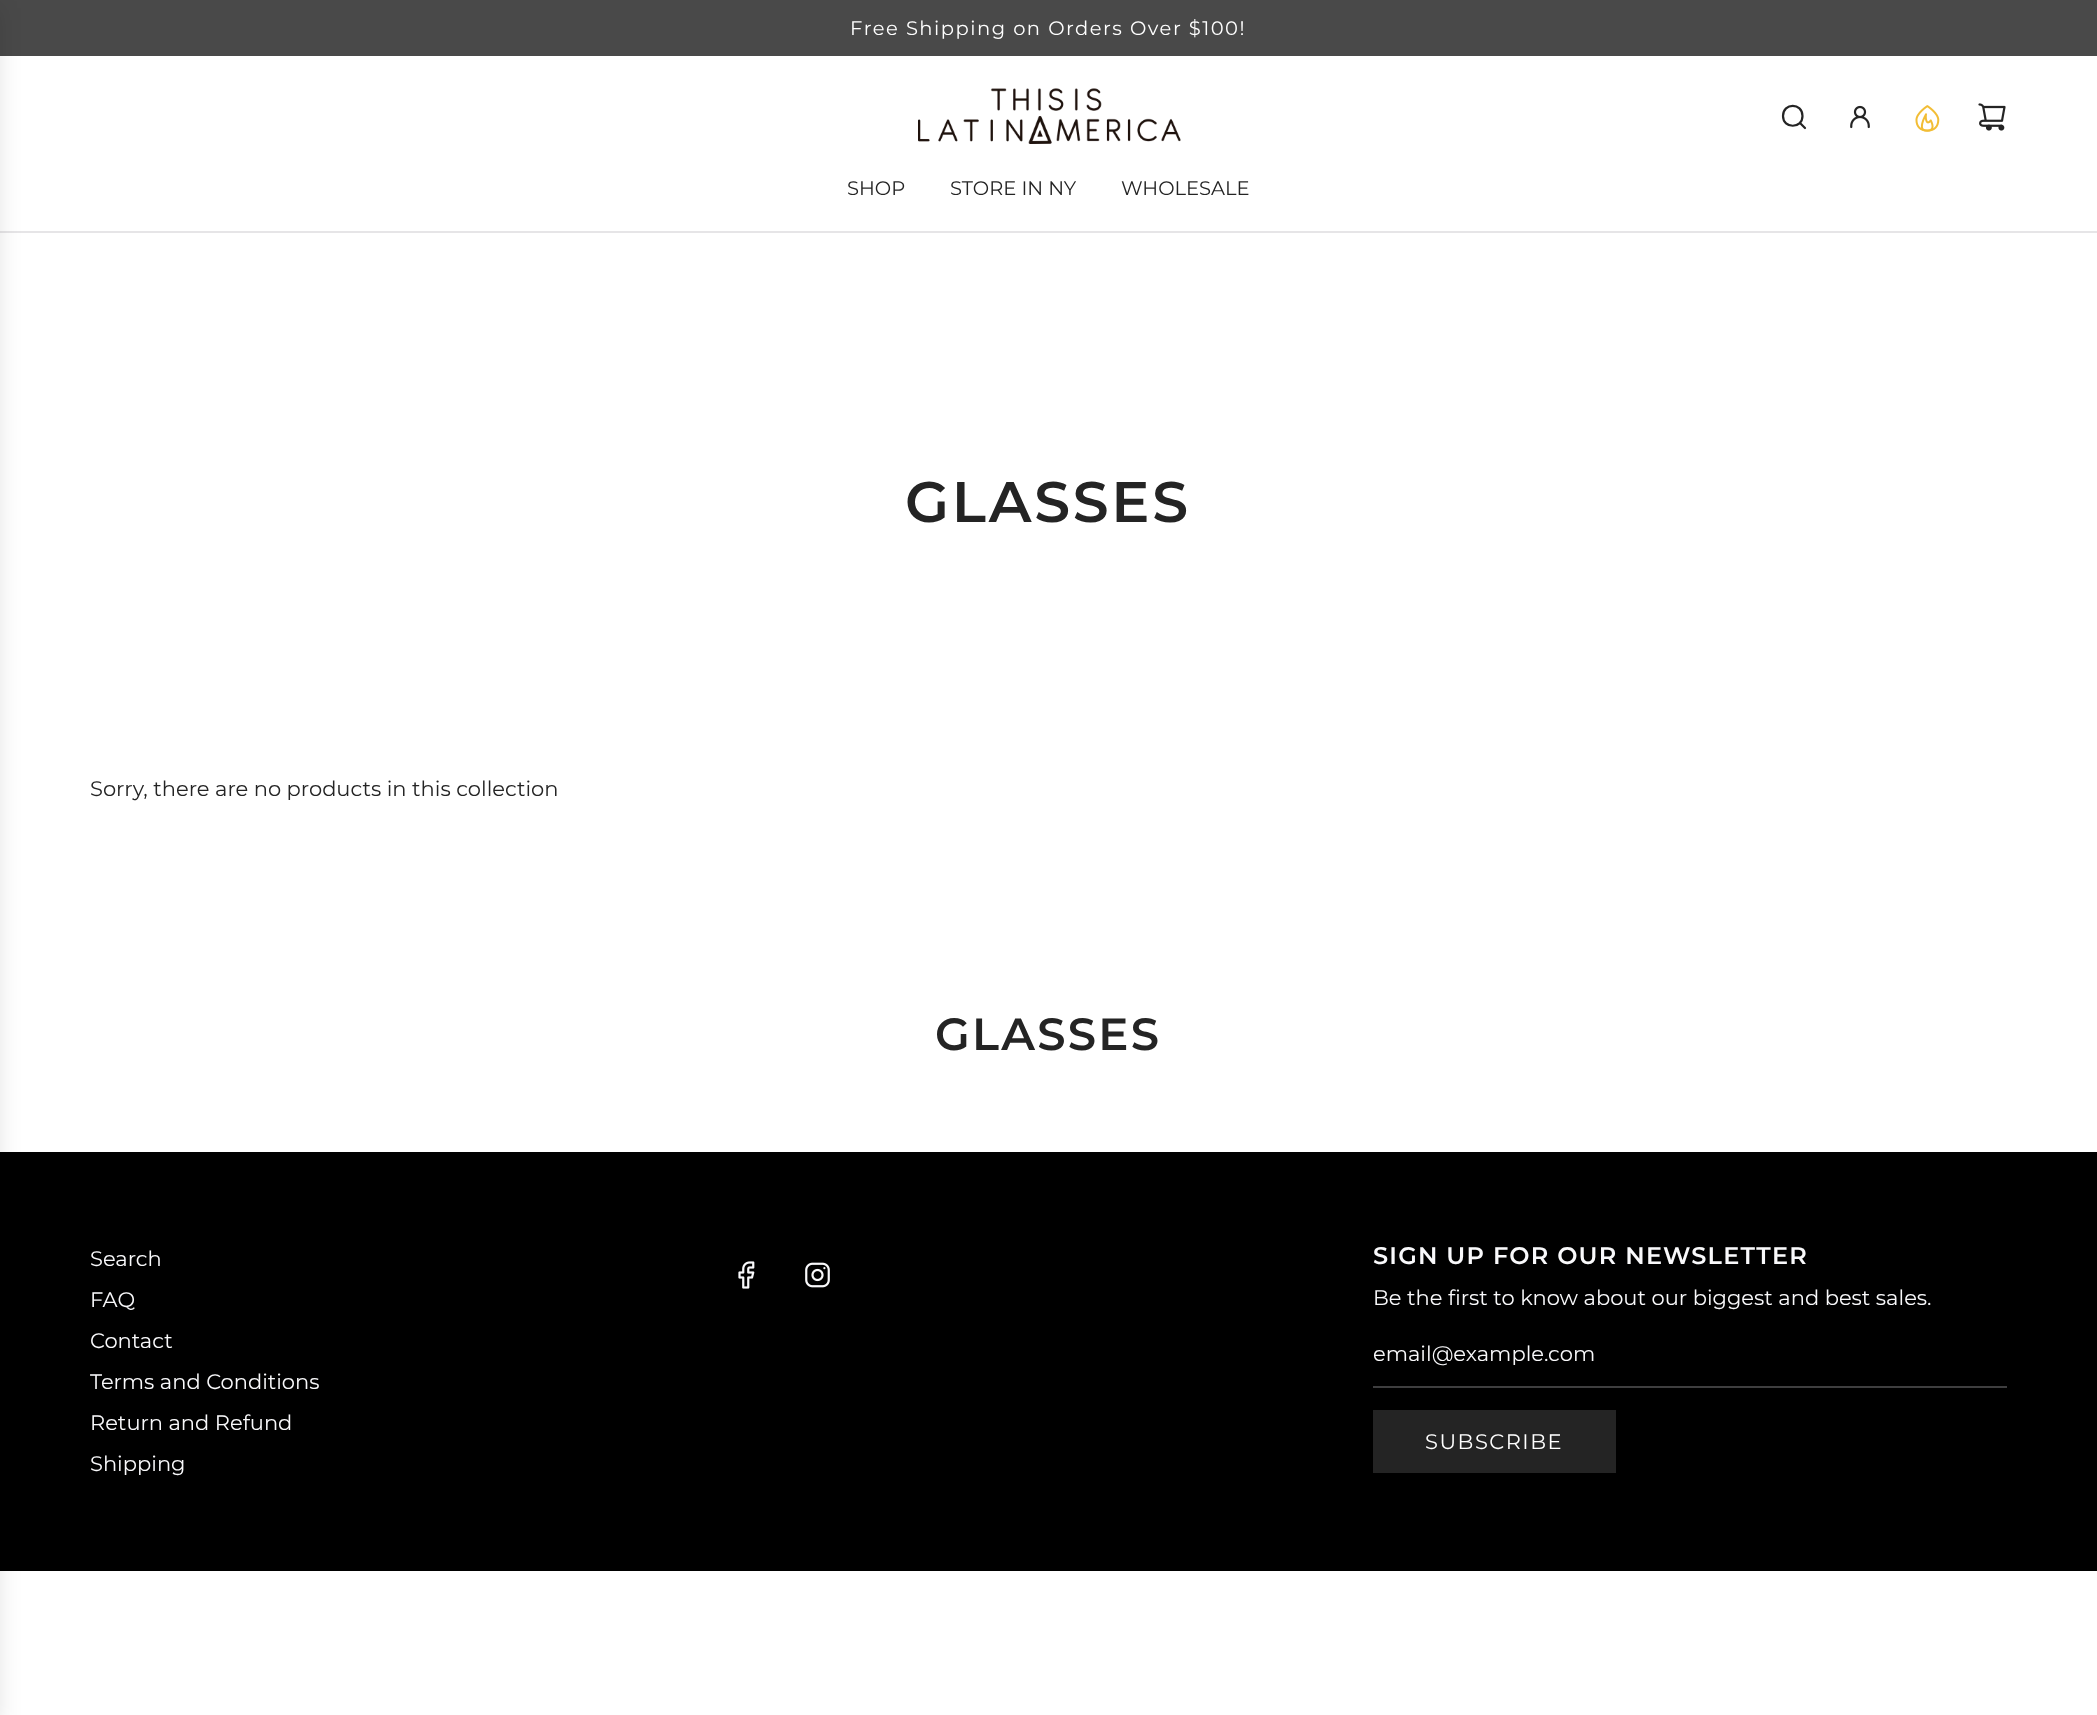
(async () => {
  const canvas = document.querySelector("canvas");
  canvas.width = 2097;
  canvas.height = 1715;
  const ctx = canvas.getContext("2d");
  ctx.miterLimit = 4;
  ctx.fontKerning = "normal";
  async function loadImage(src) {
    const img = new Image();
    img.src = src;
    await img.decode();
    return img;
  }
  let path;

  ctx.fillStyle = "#ffffff";
  ctx.fillRect(0, 0, 2097, 1715);
  for (const [x, y, w, h, color] of [
    [0, 0, 2097, 56, "#494949"],
    [0, 231, 2097, 2, "#e6e5e7"],
    [0, 1152, 2097, 419, "#000000"],
  ]) {
    ctx.fillStyle = color;
    ctx.fillRect(x, y, w, h);
  }
  ctx.fillStyle = "rgba(0, 0, 0, 0.1)";
  ctx.filter = "blur(11px)";
  ctx.beginPath();
  ctx.rect(-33, 8, 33, 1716);
  ctx.fill();
  ctx.filter = "none";
  ctx.drawImage(await loadImage("img/1.png"), 918, 88, 263, 56);
  path = new Path2D("M1800.5 123.5L1805 128M1783 116C1783 129 1802.5 129 1802.5 116C1802.5 102.5 1783 102.5 1783 116Z");
  ctx.strokeStyle = "#242424";
  ctx.lineWidth = 2.2;
  ctx.lineCap = "round";
  ctx.lineJoin = "round";
  ctx.stroke(path);
  ctx.drawImage(await loadImage("img/2.png"), 1850, 105, 20, 24);
  ctx.drawImage(await loadImage("img/3.png"), 1915, 105, 25, 27);
  ctx.drawImage(await loadImage("img/4.png"), 1978, 103, 28, 28);
  ctx.drawImage(await loadImage("img/5.png"), 738, 1261, 17, 28);
  ctx.drawImage(await loadImage("img/6.png"), 805, 1262, 25, 26);
  ctx.fillStyle = "#3e3e3f";
  ctx.fillRect(1373, 1386, 634, 2);
  ctx.fillStyle = "#242424";
  ctx.fillRect(1373, 1410, 243, 63);
  ctx.letterSpacing = "1.5px";
  ctx.font = "19.5px Montserrat";
  ctx.fillStyle = "#ffffff";
  ctx.fillText("Free Shipping on Orders Over $100!", 850, 35);
  ctx.letterSpacing = "0px";
  ctx.fillStyle = "#242424";
  for (const [text, x, y] of [
    ["SHOP", 847, 195],
    ["STORE IN NY", 950, 195],
    ["WHOLESALE", 1121, 195],
  ]) {
    ctx.fillText(text, x, y);
  }
  ctx.letterSpacing = "2.75px";
  ctx.font = "600 57px Montserrat";
  ctx.fillText("GLASSES", 905, 522);
  ctx.letterSpacing = "0px";
  ctx.font = "21px Montserrat";
  ctx.fillText("Sorry, there are no products in this collection", 90, 796);
  ctx.letterSpacing = "2.25px";
  ctx.font = "600 45px Montserrat";
  ctx.fillText("GLASSES", 935, 1050);
  ctx.letterSpacing = "0px";
  ctx.font = "21px Montserrat";
  ctx.fillStyle = "#f9f9fb";
  for (const [text, x, y] of [
    ["Search", 90, 1266],
    ["FAQ", 90, 1307],
    ["Contact", 90, 1348],
    ["Terms and Conditions", 90, 1389],
    ["Return and Refund", 90, 1430],
    ["Shipping", 90, 1471],
  ]) {
    ctx.fillText(text, x, y);
  }
  ctx.letterSpacing = "1.2px";
  ctx.font = "600 24px Montserrat";
  ctx.fillText("SIGN UP FOR OUR NEWSLETTER", 1373, 1264);
  ctx.letterSpacing = "0px";
  ctx.font = "21px Montserrat";
  ctx.fillText("Be the first to know about our biggest and best sales.", 1373, 1305);
  ctx.fillText("email@example.com", 1373, 1361);
  ctx.letterSpacing = "1.5px";
  ctx.fillStyle = "#ffffff";
  ctx.fillText("SUBSCRIBE", 1425, 1449);
})();
